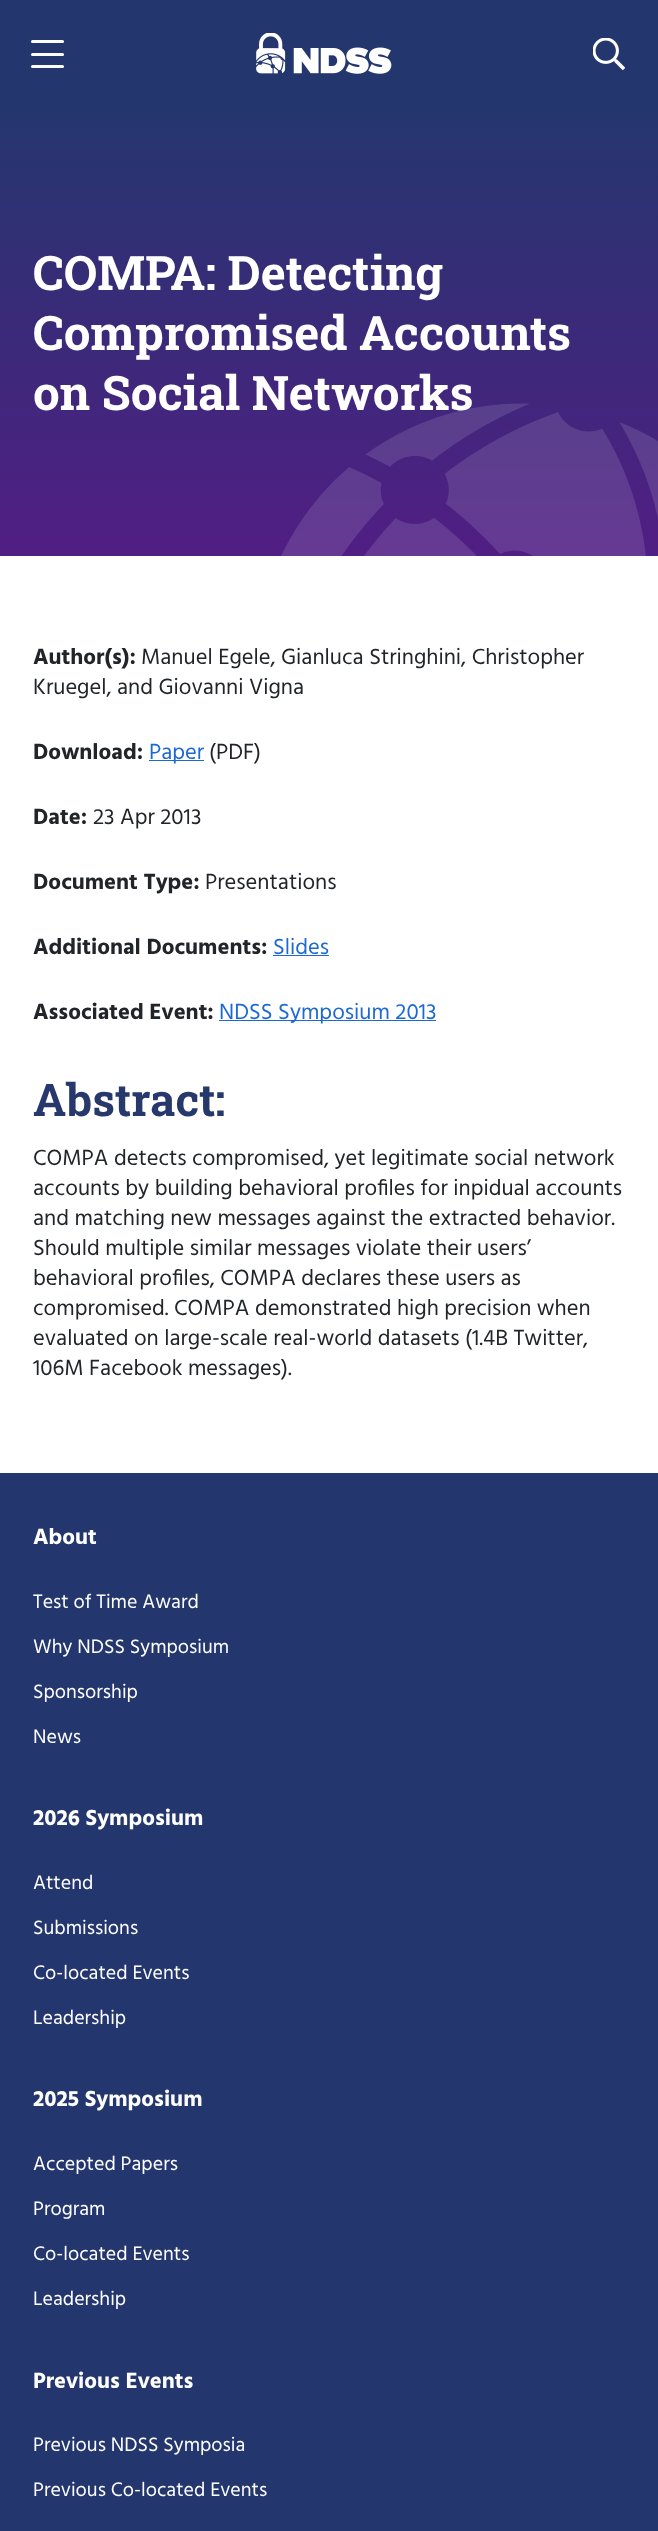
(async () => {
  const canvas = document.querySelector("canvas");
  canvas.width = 658;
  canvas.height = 2531;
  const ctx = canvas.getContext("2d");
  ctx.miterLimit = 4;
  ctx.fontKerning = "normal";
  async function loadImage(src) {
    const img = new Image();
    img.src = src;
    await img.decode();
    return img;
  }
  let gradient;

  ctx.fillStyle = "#ffffff";
  ctx.fillRect(0, 0, 658, 2531);
  ctx.fillStyle = "#24366e";
  ctx.fillRect(0, 0, 658, 106);
  ctx.fillStyle = "#ffffff";
  ctx.beginPath();
  ctx.roundRect(31, 40, 33, 3, 1.5);
  ctx.fill();
  ctx.beginPath();
  ctx.roundRect(31, 53, 33, 3, 1.5);
  ctx.fill();
  ctx.beginPath();
  ctx.roundRect(31, 65, 33, 3, 1.5);
  ctx.fill();
  ctx.drawImage(await loadImage("img/1.png"), 256, 33, 136, 41);
  ctx.drawImage(await loadImage("img/2.png"), 593, 38, 32, 32);
  gradient = ctx.createLinearGradient(329, 106, 329, 556);
  gradient.addColorStop(0, "#24366e");
  gradient.addColorStop(1, "#511e84");
  ctx.fillStyle = gradient;
  ctx.fillRect(0, 106, 658, 450);
  for (const [x, y, w, h, color] of [
    [149, 760, 55, 1, "#1d69d3"],
    [273, 955, 56, 1, "#1d69d3"],
    [219, 1020, 217, 1, "#1d69d3"],
    [0, 1473, 658, 1058, "#24366e"],
  ]) {
    ctx.fillStyle = color;
    ctx.fillRect(x, y, w, h);
  }
  ctx.font = "bold 47.5px Roboto Slab";
  ctx.fillStyle = "#ffffff";
  for (const [text, x, y] of [
    ["COMPA: Detecting", 33, 290],
    ["Compromised Accounts", 33, 350],
    ["on Social Networks", 33, 410],
  ]) {
    ctx.fillText(text, x, y);
  }
  ctx.drawImage(await loadImage("img/3.png"), 281, 403, 377, 153);
  ctx.font = "bold 22.5px Hind";
  ctx.fillStyle = "#212529";
  ctx.fillText("Author(s):", 33, 664);
  ctx.font = "22.5px Hind";
  ctx.fillText("Manuel Egele, Gianluca Stringhini, Christopher", 141, 664);
  ctx.fillText("Kruegel, and Giovanni Vigna", 33, 694);
  ctx.font = "bold 22.5px Hind";
  ctx.fillText("Download:", 33, 759);
  ctx.font = "22.5px Hind";
  ctx.fillStyle = "#1d69d3";
  ctx.fillText("Paper", 149, 759);
  ctx.fillStyle = "#212529";
  ctx.fillText("(PDF)", 209, 759);
  ctx.font = "bold 22.5px Hind";
  ctx.fillText("Date:", 33, 824);
  ctx.font = "22.5px Hind";
  ctx.fillText("23 Apr 2013", 93, 824);
  ctx.font = "bold 22.5px Hind";
  ctx.fillText("Document Type:", 33, 889);
  ctx.font = "22.5px Hind";
  ctx.fillText("Presentations", 205, 889);
  ctx.font = "bold 22.5px Hind";
  ctx.fillText("Additional Documents:", 33, 954);
  ctx.font = "22.5px Hind";
  ctx.fillStyle = "#1d69d3";
  ctx.fillText("Slides", 273, 954);
  ctx.font = "bold 22.5px Hind";
  ctx.fillStyle = "#212529";
  ctx.fillText("Associated Event:", 33, 1019);
  ctx.font = "22.5px Hind";
  ctx.fillStyle = "#1d69d3";
  ctx.fillText("NDSS Symposium 2013", 219, 1019);
  ctx.font = "bold 45px Roboto Slab";
  ctx.fillStyle = "#26386c";
  ctx.fillText("Abstract:", 33, 1116);
  ctx.font = "22.5px Hind";
  ctx.fillStyle = "#212529";
  for (const [text, x, y] of [
    ["COMPA detects compromised, yet legitimate social network", 33, 1165],
    ["accounts by building behavioral profiles for inpidual accounts", 33, 1195],
    ["and matching new messages against the extracted behavior.", 33, 1225],
    ["Should multiple similar messages violate their users’", 33, 1255],
    ["behavioral profiles, COMPA declares these users as", 33, 1285],
    ["compromised. COMPA demonstrated high precision when", 33, 1315],
    ["evaluated on large-scale real-world datasets (1.4B Twitter,", 33, 1345],
    ["106M Facebook messages).", 33, 1375],
  ]) {
    ctx.fillText(text, x, y);
  }
  ctx.font = "bold 22.5px Hind";
  ctx.fillStyle = "#ffffff";
  ctx.fillText("About", 33, 1544);
  ctx.font = "20px Hind";
  for (const [text, x, y] of [
    ["Test of Time Award", 33, 1608],
    ["Why NDSS Symposium", 33, 1653],
    ["Sponsorship", 33, 1698],
    ["News", 33, 1743],
  ]) {
    ctx.fillText(text, x, y);
  }
  ctx.font = "bold 22.5px Hind";
  ctx.fillText("2026 Symposium", 33, 1825);
  ctx.font = "20px Hind";
  for (const [text, x, y] of [
    ["Attend", 33, 1889],
    ["Submissions", 33, 1934],
    ["Co-located Events", 33, 1979],
    ["Leadership", 33, 2024],
  ]) {
    ctx.fillText(text, x, y);
  }
  ctx.font = "bold 22.5px Hind";
  ctx.fillText("2025 Symposium", 33, 2106);
  ctx.font = "20px Hind";
  for (const [text, x, y] of [
    ["Accepted Papers", 33, 2170],
    ["Program", 33, 2215],
    ["Co-located Events", 33, 2260],
    ["Leadership", 33, 2305],
  ]) {
    ctx.fillText(text, x, y);
  }
  ctx.font = "bold 22.5px Hind";
  ctx.fillText("Previous Events", 33, 2388);
  ctx.font = "20px Hind";
  ctx.fillText("Previous NDSS Symposia", 33, 2451);
  ctx.fillText("Previous Co-located Events", 33, 2496);
})();
